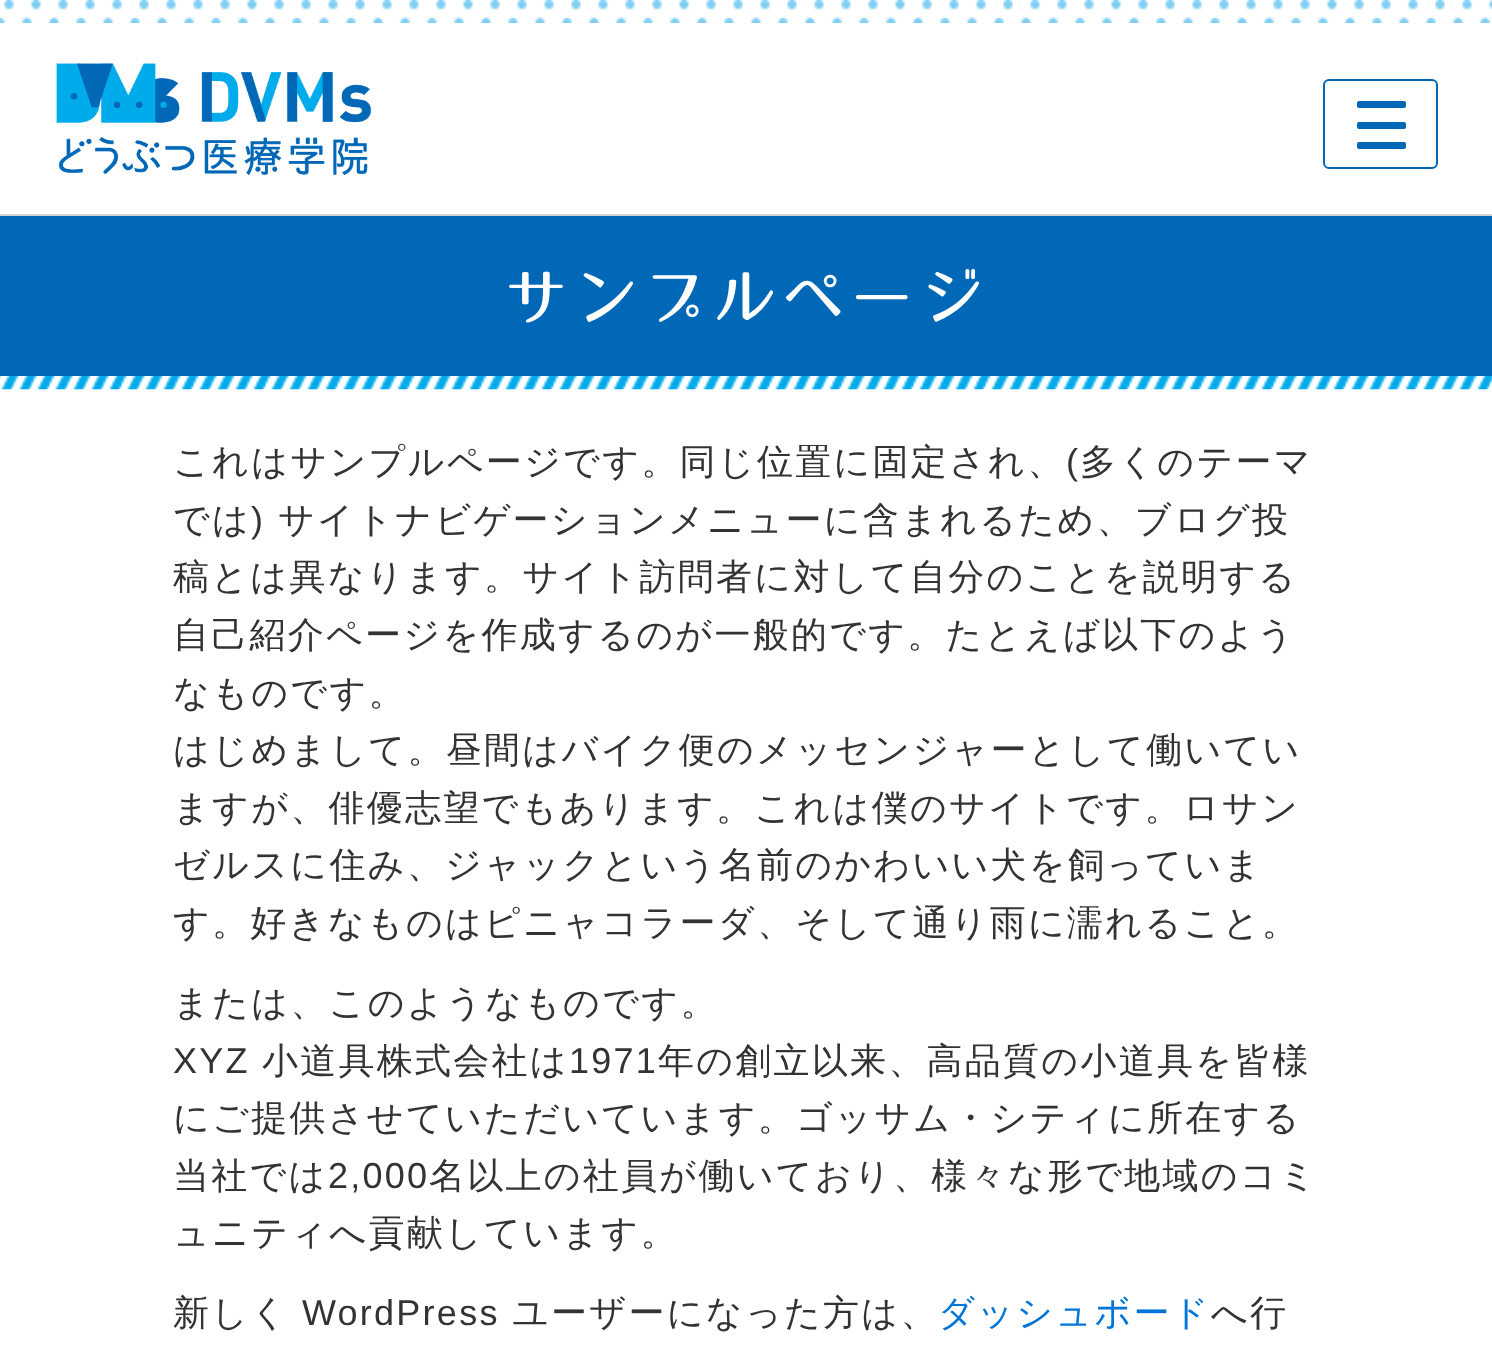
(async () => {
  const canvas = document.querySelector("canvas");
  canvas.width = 1492;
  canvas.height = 1353;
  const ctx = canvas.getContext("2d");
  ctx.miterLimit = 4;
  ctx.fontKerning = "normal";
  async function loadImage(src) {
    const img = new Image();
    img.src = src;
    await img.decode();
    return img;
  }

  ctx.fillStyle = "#ffffff";
  ctx.fillRect(0, 0, 1492, 1353);
  ctx.drawImage(await loadImage("img/1.png"), 0, 0, 1492, 23);
  ctx.fillStyle = "#d4d4d4";
  ctx.fillRect(0, 214, 1492, 2);
  ctx.drawImage(await loadImage("img/2.png"), 56, 63, 316, 113);
  ctx.beginPath();
  ctx.roundRect(1324, 80, 113, 88, 5);
  ctx.strokeStyle = "#0068b7";
  ctx.lineWidth = 2;
  ctx.stroke();
  ctx.fillStyle = "#0068b7";
  ctx.beginPath();
  ctx.roundRect(1357, 101, 49, 7, 2);
  ctx.fill();
  ctx.beginPath();
  ctx.roundRect(1357, 122, 49, 7, 2);
  ctx.fill();
  ctx.beginPath();
  ctx.roundRect(1357, 142, 49, 7, 2);
  ctx.fill();
  ctx.drawImage(await loadImage("img/3.png"), 0, 376, 1492, 14);
  ctx.fillStyle = "#0068b6";
  ctx.fillRect(0, 216, 1492, 160);
  ctx.letterSpacing = "6.25px";
  ctx.font = "63px '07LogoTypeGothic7'";
  ctx.fillStyle = "#ffffff";
  ctx.fillText("サンプルページ", 504, 320);
  ctx.letterSpacing = "2.25px";
  ctx.font = "500 36px WenQuanYi Zen Hei";
  ctx.fillStyle = "#333333";
  ctx.fillText("これはサンプルページです。同じ位置に固定され、", 173, 474);
  ctx.font = "36px Liberation Sans";
  ctx.fillText("(", 1066, 474);
  ctx.font = "500 36px WenQuanYi Zen Hei";
  ctx.fillText("多くのテーマ", 1080, 474);
  ctx.fillText("では", 173, 532);
  ctx.font = "36px Liberation Sans";
  ctx.fillText(")", 251, 532);
  ctx.font = "500 36px WenQuanYi Zen Hei";
  for (const [text, x, y] of [
    ["サイトナビゲーションメニューに含まれるため、ブログ投", 278, 532],
    ["稿とは異なります。サイト訪問者に対して自分のことを説明する", 173, 589],
    ["自己紹介ページを作成するのが一般的です。たとえば以下のよう", 173, 647],
    ["なものです。", 173, 705],
    ["はじめまして。昼間はバイク便のメッセンジャーとして働いてい", 173, 762],
    ["ますが、俳優志望でもあります。これは僕のサイトです。ロサン", 173, 820],
    ["ゼルスに住み、ジャックという名前のかわいい犬を飼っていま", 173, 877],
    ["す。好きなものはピニャコラーダ、そして通り雨に濡れること。", 173, 935],
    ["または、このようなものです。", 173, 1015],
  ]) {
    ctx.fillText(text, x, y);
  }
  ctx.font = "36px Liberation Sans";
  ctx.fillText("XYZ", 173, 1073);
  ctx.font = "500 36px WenQuanYi Zen Hei";
  ctx.fillText("小道具株式会社は", 262, 1073);
  ctx.font = "36px Liberation Sans";
  ctx.fillText("1971", 569, 1073);
  ctx.font = "500 36px WenQuanYi Zen Hei";
  for (const [text, x, y] of [
    ["年の創立以来、高品質の小道具を皆様", 658, 1073],
    ["にご提供させていただいています。ゴッサム・シティに所在する", 173, 1130],
    ["当社では", 173, 1188],
  ]) {
    ctx.fillText(text, x, y);
  }
  ctx.font = "36px Liberation Sans";
  ctx.fillText("2,000", 328, 1188);
  ctx.font = "500 36px WenQuanYi Zen Hei";
  for (const [text, x, y] of [
    ["名以上の社員が働いており、様々な形で地域のコミ", 429, 1188],
    ["ュニティへ貢献しています。", 173, 1245],
    ["新しく", 173, 1325],
  ]) {
    ctx.fillText(text, x, y);
  }
  ctx.font = "36px Liberation Sans";
  ctx.fillText("WordPress", 302, 1325);
  ctx.font = "500 36px WenQuanYi Zen Hei";
  ctx.fillText("ユーザーになった方は、", 512, 1325);
  ctx.fillStyle = "#0275d8";
  ctx.fillText("ダッシュボード", 938, 1325);
  ctx.fillStyle = "#333333";
  ctx.fillText("へ行", 1211, 1325);
})();
